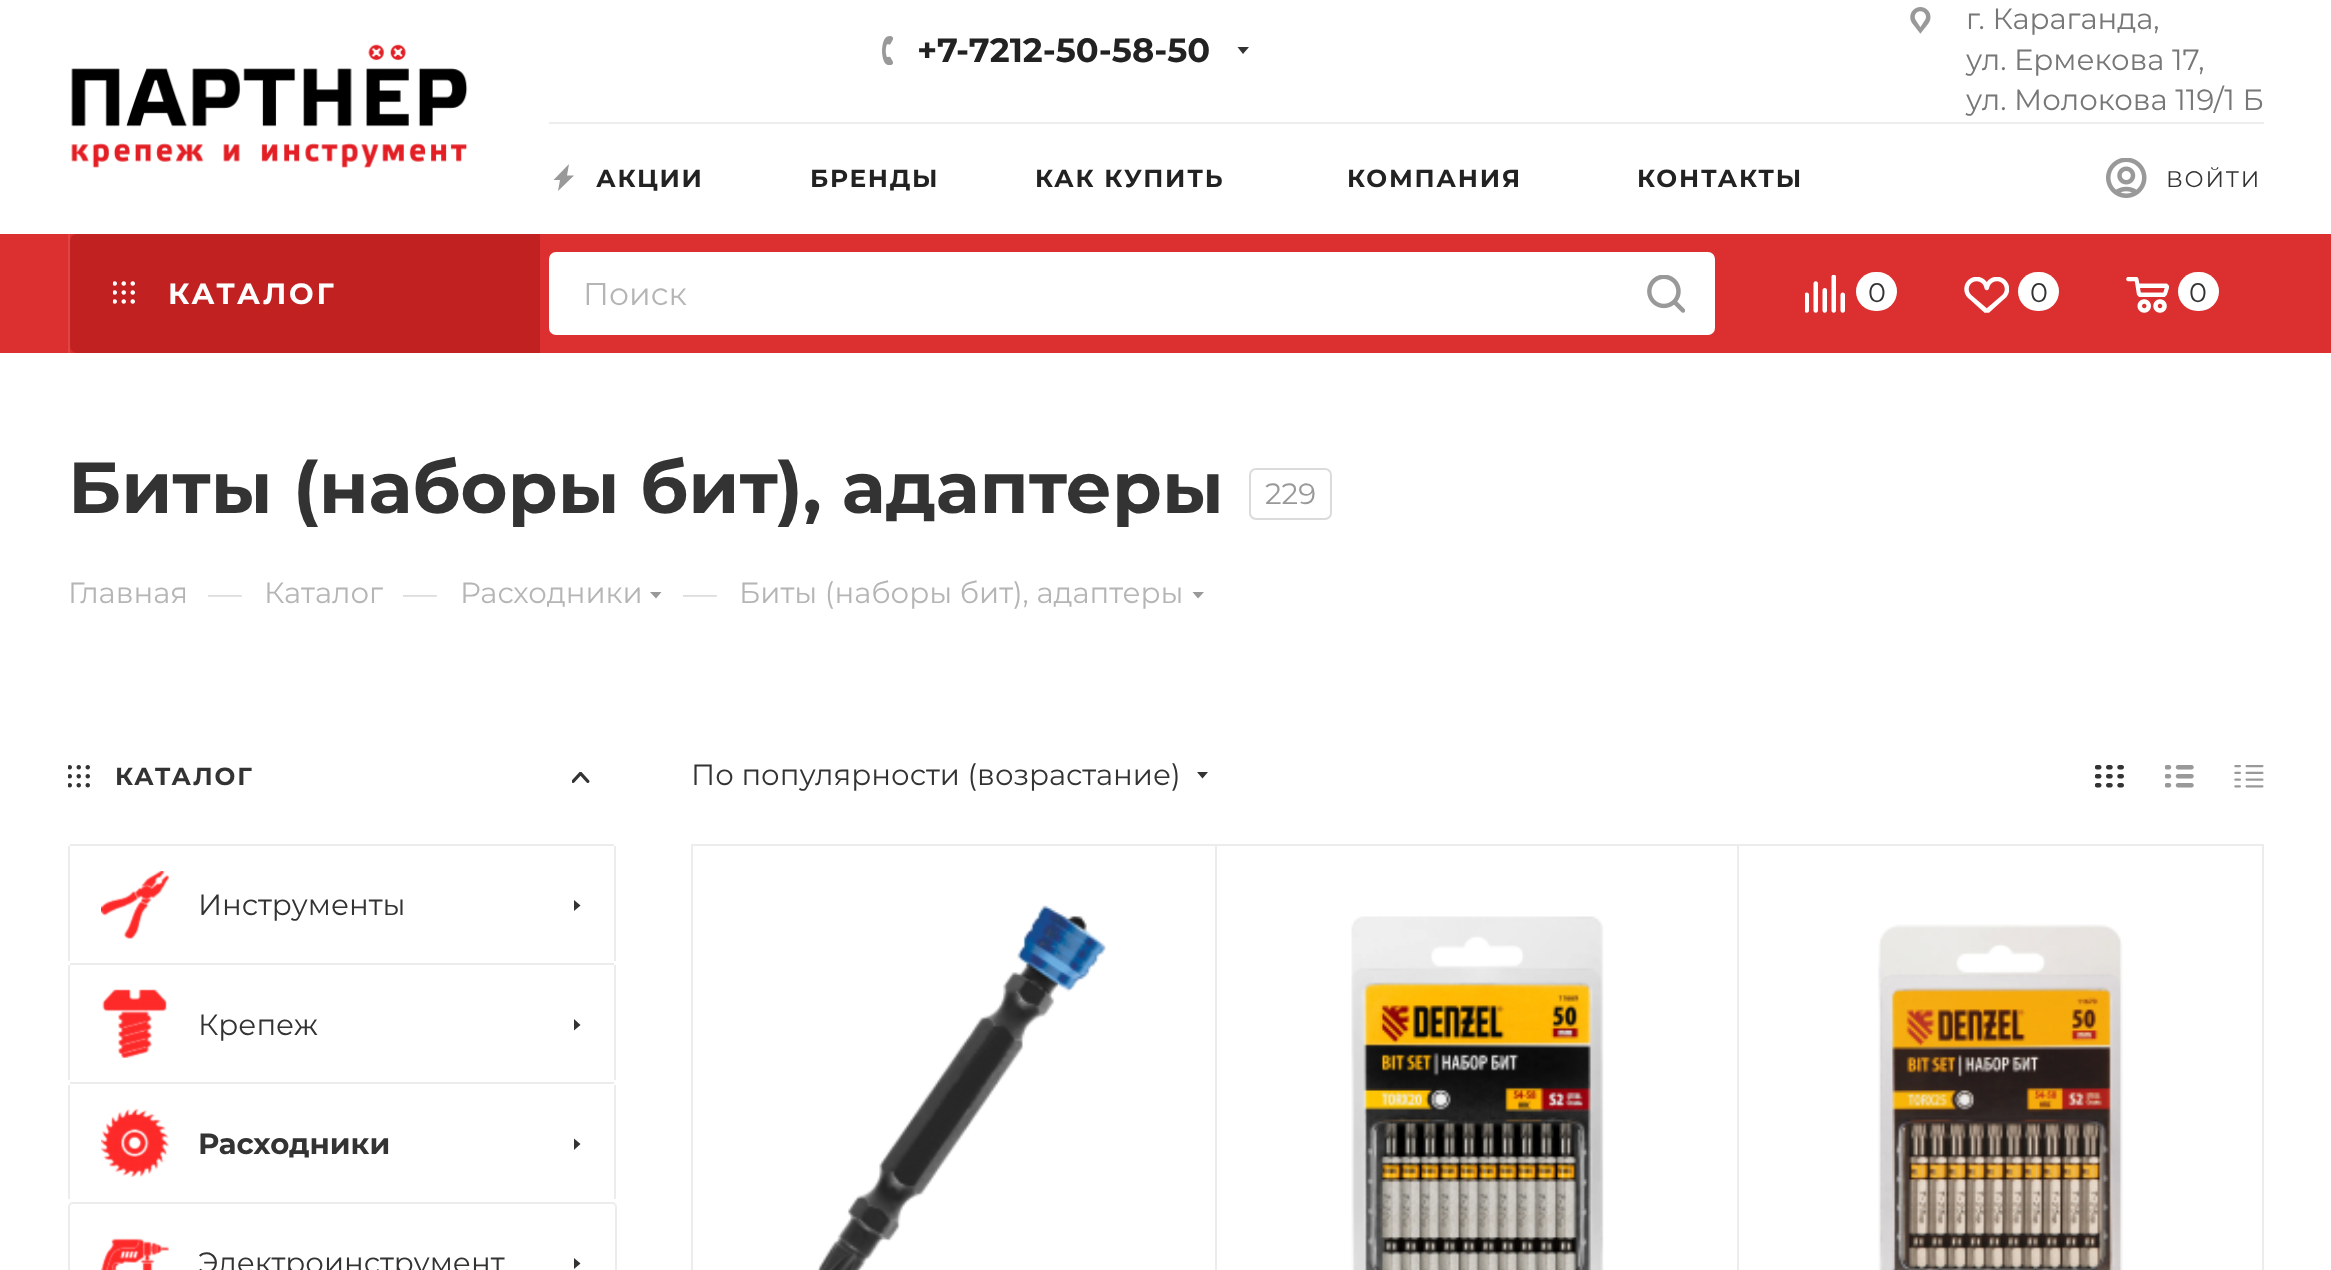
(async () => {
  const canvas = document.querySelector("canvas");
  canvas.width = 2331;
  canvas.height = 1270;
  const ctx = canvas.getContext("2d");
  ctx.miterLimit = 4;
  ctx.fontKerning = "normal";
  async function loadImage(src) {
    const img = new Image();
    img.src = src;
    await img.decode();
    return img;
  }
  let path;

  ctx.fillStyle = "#ffffff";
  ctx.fillRect(0, 0, 2331, 1270);
  ctx.drawImage(await loadImage("img/1.png"), 71, 44, 397, 124);
  ctx.drawImage(await loadImage("img/2.png"), 882, 36, 11, 29);
  ctx.fillStyle = "#333333";
  path = new Path2D("M1237.5 47H1249L1243 54Z");
  ctx.fill(path, "evenodd");
  ctx.drawImage(await loadImage("img/3.png"), 1910, 7, 21, 27);
  ctx.fillStyle = "#ededed";
  ctx.fillRect(549, 122, 1715, 2);
  ctx.fillStyle = "#999999";
  path = new Path2D("M569 164L553.5 180H560L558 191L574 175.5H567Z");
  ctx.fill(path, "evenodd");
  ctx.drawImage(await loadImage("img/4.png"), 2106, 158, 41, 40);
  ctx.fillStyle = "#dc2f2f";
  ctx.fillRect(0, 234, 2331, 119);
  ctx.fillStyle = "#e04444";
  ctx.fillRect(68, 234, 2, 119);
  ctx.fillStyle = "#c22121";
  ctx.beginPath();
  ctx.roundRect(70, 234, 470, 119, [7, 0, 0, 7]);
  ctx.fill();
  ctx.drawImage(await loadImage("img/5.png"), 113, 281, 22, 23);
  ctx.fillStyle = "#ffffff";
  ctx.beginPath();
  ctx.roundRect(550, 253, 1164, 81, 6);
  ctx.fill();
  ctx.strokeStyle = "#ffffff";
  ctx.lineWidth = 2;
  ctx.stroke();
  ctx.drawImage(await loadImage("img/6.png"), 1647, 275, 38, 38);
  ctx.drawImage(await loadImage("img/7.png"), 1805, 275, 40, 38);
  ctx.beginPath();
  ctx.roundRect(1856, 272, 41, 39, 19.5);
  ctx.fill();
  ctx.drawImage(await loadImage("img/8.png"), 1964, 277, 45, 36);
  ctx.beginPath();
  ctx.roundRect(2018, 272, 41, 39, 19.5);
  ctx.fill();
  ctx.drawImage(await loadImage("img/9.png"), 2126, 277, 43, 36);
  ctx.beginPath();
  ctx.roundRect(2178, 272, 41, 39, 19.5);
  ctx.fill();
  ctx.beginPath();
  ctx.roundRect(1250, 469, 81, 50, 6);
  ctx.strokeStyle = "#dbdbdb";
  ctx.stroke();
  ctx.fillStyle = "#999999";
  path = new Path2D("M650 592H661.5L656 598.5Z");
  ctx.fill(path, "evenodd");
  path = new Path2D("M1192.5 592H1204L1198 598.5Z");
  ctx.fill(path, "evenodd");
  ctx.drawImage(await loadImage("img/10.png"), 68, 765, 22, 23);
  ctx.drawImage(await loadImage("img/11.png"), 572, 772, 18, 11);
  for (const [x, y, w, h, color] of [
    [70, 844, 544, 2, "#ececec"],
    [614, 846, 2, 115, "#ececec"],
    [68, 846, 2, 115, "#ececec"],
  ]) {
    ctx.fillStyle = color;
    ctx.fillRect(x, y, w, h);
  }
  ctx.drawImage(await loadImage("img/12.png"), 101, 871, 68, 68);
  ctx.fillStyle = "#333333";
  path = new Path2D("M574 911V900L580.5 905.5Z");
  ctx.fill(path, "evenodd");
  for (const [x, y, w, h, color] of [
    [70, 963, 544, 2, "#ececec"],
    [614, 965, 2, 115, "#ececec"],
    [68, 965, 2, 115, "#ececec"],
  ]) {
    ctx.fillStyle = color;
    ctx.fillRect(x, y, w, h);
  }
  ctx.drawImage(await loadImage("img/13.png"), 102, 989, 65, 69);
  ctx.fillStyle = "#333333";
  path = new Path2D("M574 1030.5V1019L580.5 1025Z");
  ctx.fill(path, "evenodd");
  for (const [x, y, w, h, color] of [
    [70, 1082, 544, 2, "#ececec"],
    [614, 1085, 2, 114, "#ececec"],
    [68, 1085, 2, 114, "#ececec"],
  ]) {
    ctx.fillStyle = color;
    ctx.fillRect(x, y, w, h);
  }
  ctx.drawImage(await loadImage("img/14.png"), 101, 1108, 68, 69);
  ctx.fillStyle = "#333333";
  path = new Path2D("M574 1150V1138.5L580.5 1144Z");
  ctx.fill(path, "evenodd");
  ctx.beginPath();
  ctx.roundRect(69, 1203, 547, 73, 4);
  ctx.strokeStyle = "#ececec";
  ctx.stroke();
  ctx.drawImage(await loadImage("img/15.png"), 101, 1238, 68, 32);
  path = new Path2D("M574 1269V1258L580.5 1263.5Z");
  ctx.fill(path, "evenodd");
  path = new Path2D("M1197 772H1208L1202.5 778.5Z");
  ctx.fill(path, "evenodd");
  ctx.drawImage(await loadImage("img/16.png"), 2095, 765, 29, 23);
  ctx.drawImage(await loadImage("img/17.png"), 2165, 765, 29, 23);
  ctx.drawImage(await loadImage("img/18.png"), 2234, 765, 30, 23);
  ctx.strokeRect(692, 845, 524, 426);
  ctx.drawImage(await loadImage("img/19.png"), 817, 905, 289, 365);
  ctx.strokeRect(1216, 845, 522, 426);
  ctx.drawImage(await loadImage("img/20.png"), 1351, 916, 253, 354);
  ctx.strokeRect(1738, 845, 525, 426);
  ctx.drawImage(await loadImage("img/21.png"), 1878, 924, 245, 346);
  ctx.font = "bold 33.75px Montserrat";
  ctx.fillStyle = "#222222";
  ctx.fillText("+7-7212-50-58-50", 917, 62);
  ctx.font = "29.25px Montserrat";
  ctx.fillStyle = "#777777";
  for (const [text, x, y] of [
    ["г. Караганда,", 1966, 29],
    ["ул. Ермекова 17,", 1966, 70],
    ["ул. Молокова 119/1 Б", 1966, 110],
  ]) {
    ctx.fillText(text, x, y);
  }
  ctx.letterSpacing = "1.75px";
  ctx.font = "bold 24.75px Montserrat";
  ctx.fillStyle = "#222222";
  for (const [text, x, y] of [
    ["АКЦИИ", 596, 187],
    ["БРЕНДЫ", 810, 187],
    ["КАК КУПИТЬ", 1035, 187],
    ["КОМПАНИЯ", 1347, 187],
    ["КОНТАКТЫ", 1637, 187],
  ]) {
    ctx.fillText(text, x, y);
  }
  ctx.font = "22.5px Montserrat";
  ctx.fillStyle = "#333333";
  ctx.fillText("ВОЙТИ", 2166, 187);
  ctx.letterSpacing = "2.75px";
  ctx.font = "bold 29.25px Montserrat";
  ctx.fillStyle = "#ffffff";
  ctx.fillText("КАТАЛОГ", 168, 304);
  ctx.letterSpacing = "0px";
  ctx.font = "31.5px Montserrat";
  ctx.fillStyle = "#b6b5b5";
  ctx.fillText("Поиск", 583, 305);
  ctx.font = "27px Montserrat";
  ctx.fillStyle = "#333333";
  for (const [text, x, y] of [
    ["0", 1868, 302],
    ["0", 2030, 302],
    ["0", 2189, 302],
  ]) {
    ctx.fillText(text, x, y);
  }
  ctx.font = "bold 72px Montserrat";
  ctx.fillText("Биты (наборы бит), адаптеры", 68, 513);
  ctx.font = "29.25px Montserrat";
  ctx.fillStyle = "#999999";
  ctx.fillText("229", 1265, 504);
  ctx.fillStyle = "#b6b5b5";
  ctx.fillText("Главная", 68, 603);
  ctx.font = "33.75px Montserrat";
  ctx.fillStyle = "#dddddd";
  ctx.fillText("—", 208, 605);
  ctx.font = "29.25px Montserrat";
  ctx.fillStyle = "#b6b5b5";
  ctx.fillText("Каталог", 264, 603);
  ctx.font = "33.75px Montserrat";
  ctx.fillStyle = "#dddddd";
  ctx.fillText("—", 403, 605);
  ctx.font = "29.25px Montserrat";
  ctx.fillStyle = "#b6b5b5";
  ctx.fillText("Расходники", 460, 603);
  ctx.font = "33.75px Montserrat";
  ctx.fillStyle = "#dddddd";
  ctx.fillText("—", 683, 605);
  ctx.font = "29.25px Montserrat";
  ctx.fillStyle = "#b6b5b5";
  ctx.fillText("Биты (наборы бит), адаптеры", 739, 603);
  ctx.letterSpacing = "1.75px";
  ctx.font = "bold 24.75px Montserrat";
  ctx.fillStyle = "#333333";
  ctx.fillText("КАТАЛОГ", 115, 785);
  ctx.letterSpacing = "0px";
  ctx.font = "29.25px Montserrat";
  ctx.fillText("Инструменты", 198, 915);
  ctx.fillText("Крепеж", 198, 1035);
  ctx.font = "bold 29.25px Montserrat";
  ctx.fillText("Расходники", 198, 1154);
  ctx.font = "29.25px Montserrat";
  ctx.fillText("Электроинструмент", 198, 1273);
  ctx.fillText("По популярности (возрастание)", 691, 785);
})();
